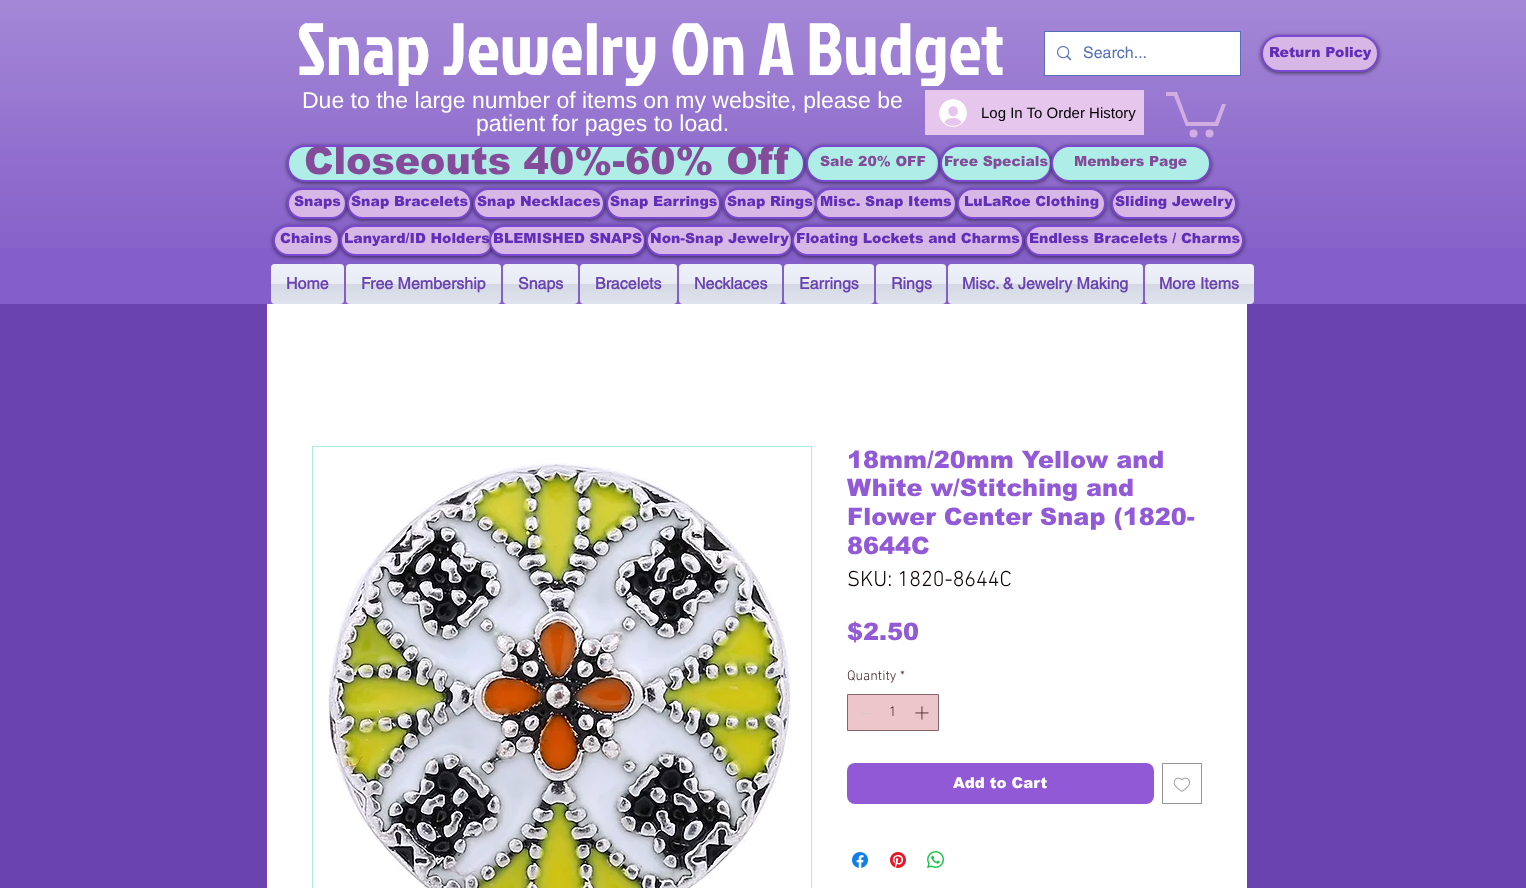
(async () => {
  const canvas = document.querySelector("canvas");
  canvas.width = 1526;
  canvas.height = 888;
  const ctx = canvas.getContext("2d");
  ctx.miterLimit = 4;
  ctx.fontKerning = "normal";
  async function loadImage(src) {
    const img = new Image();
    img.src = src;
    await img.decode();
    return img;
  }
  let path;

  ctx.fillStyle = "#855fc9";
  ctx.fillRect(0, 0, 1526, 888);
  ctx.drawImage(await loadImage("img/1.png"), 0, 0, 1526, 248);
  ctx.strokeStyle = "#566fb8";
  ctx.strokeRect(1044.5, 31.5, 196, 44);
  ctx.fillStyle = "#ffffff";
  ctx.fillRect(1045, 32, 195, 43);
  ctx.drawImage(await loadImage("img/2.png"), 1057, 46, 14, 15);
  ctx.fillStyle = "rgba(0, 0, 0, 0.6)";
  ctx.filter = "blur(2px)";
  ctx.beginPath();
  ctx.roundRect(1261, 36, 118, 37, 18.5);
  ctx.fill();
  ctx.filter = "none";
  ctx.fillStyle = "#d7b7e6";
  ctx.beginPath();
  ctx.roundRect(1262, 36, 116, 35, 17.5);
  ctx.fill();
  ctx.strokeStyle = "#7b49d1";
  ctx.lineWidth = 2;
  ctx.stroke();
  ctx.fillStyle = "#e6c6ec";
  ctx.fillRect(925, 90, 219, 45);
  ctx.drawImage(await loadImage("img/3.png"), 939, 99, 28, 28);
  ctx.fillStyle = "#d1ade2";
  path = new Path2D("M1226 104L1218 126H1186L1174 96H1166V92H1177L1188 122H1215L1222 104");
  ctx.fill(path);
  ctx.beginPath();
  ctx.arc(1209.5, 133.5, 4, 0, Math.PI * 2);
  ctx.fill();
  ctx.beginPath();
  ctx.arc(1193.5, 133.5, 4, 0, Math.PI * 2);
  ctx.fill();
  ctx.fillStyle = "rgba(0, 0, 0, 0.6)";
  ctx.filter = "blur(2px)";
  ctx.beginPath();
  ctx.roundRect(287, 146, 518, 37, 18.5);
  ctx.fill();
  ctx.filter = "none";
  ctx.fillStyle = "#afeee6";
  ctx.beginPath();
  ctx.roundRect(288, 146, 516, 35, 17.5);
  ctx.fill();
  ctx.stroke();
  ctx.fillStyle = "rgba(0, 0, 0, 0.6)";
  ctx.filter = "blur(2px)";
  ctx.beginPath();
  ctx.roundRect(806, 146, 134, 37, 18.5);
  ctx.fill();
  ctx.filter = "none";
  ctx.fillStyle = "#afeee6";
  ctx.beginPath();
  ctx.roundRect(807, 146, 132, 35, 17.5);
  ctx.fill();
  ctx.stroke();
  ctx.fillStyle = "rgba(0, 0, 0, 0.6)";
  ctx.filter = "blur(2px)";
  ctx.beginPath();
  ctx.roundRect(940, 146, 112, 37, 18.5);
  ctx.fill();
  ctx.filter = "none";
  ctx.fillStyle = "#afeee6";
  ctx.beginPath();
  ctx.roundRect(941, 146, 110, 35, 17.5);
  ctx.fill();
  ctx.stroke();
  ctx.fillStyle = "rgba(0, 0, 0, 0.6)";
  ctx.filter = "blur(2px)";
  ctx.beginPath();
  ctx.roundRect(1051, 146, 160, 37, 18.5);
  ctx.fill();
  ctx.filter = "none";
  ctx.fillStyle = "#afeee6";
  ctx.beginPath();
  ctx.roundRect(1052, 146, 158, 35, 17.5);
  ctx.fill();
  ctx.stroke();
  ctx.fillStyle = "rgba(0, 0, 0, 0.6)";
  ctx.filter = "blur(2px)";
  ctx.beginPath();
  ctx.roundRect(287, 189, 60, 31, 15.5);
  ctx.fill();
  ctx.filter = "none";
  ctx.fillStyle = "#d7b7e6";
  ctx.beginPath();
  ctx.roundRect(288, 189, 58, 29, 14.5);
  ctx.fill();
  ctx.stroke();
  ctx.fillStyle = "rgba(0, 0, 0, 0.6)";
  ctx.filter = "blur(2px)";
  ctx.beginPath();
  ctx.roundRect(347, 189, 125, 31, 15.5);
  ctx.fill();
  ctx.filter = "none";
  ctx.fillStyle = "#d7b7e6";
  ctx.beginPath();
  ctx.roundRect(348, 189, 123, 29, 14.5);
  ctx.fill();
  ctx.stroke();
  ctx.fillStyle = "rgba(0, 0, 0, 0.6)";
  ctx.filter = "blur(2px)";
  ctx.beginPath();
  ctx.roundRect(473, 189, 132, 31, 15.5);
  ctx.fill();
  ctx.filter = "none";
  ctx.fillStyle = "#d7b7e6";
  ctx.beginPath();
  ctx.roundRect(474, 189, 130, 29, 14.5);
  ctx.fill();
  ctx.stroke();
  ctx.fillStyle = "rgba(0, 0, 0, 0.6)";
  ctx.filter = "blur(2px)";
  ctx.beginPath();
  ctx.roundRect(606, 189, 115, 31, 15.5);
  ctx.fill();
  ctx.filter = "none";
  ctx.fillStyle = "#d7b7e6";
  ctx.beginPath();
  ctx.roundRect(607, 189, 113, 29, 14.5);
  ctx.fill();
  ctx.stroke();
  ctx.fillStyle = "rgba(0, 0, 0, 0.6)";
  ctx.filter = "blur(2px)";
  ctx.beginPath();
  ctx.roundRect(723, 189, 94, 31, 15.5);
  ctx.fill();
  ctx.filter = "none";
  ctx.fillStyle = "#d7b7e6";
  ctx.beginPath();
  ctx.roundRect(724, 189, 92, 29, 14.5);
  ctx.fill();
  ctx.stroke();
  ctx.fillStyle = "rgba(0, 0, 0, 0.6)";
  ctx.filter = "blur(2px)";
  ctx.beginPath();
  ctx.roundRect(815, 189, 142, 31, 15.5);
  ctx.fill();
  ctx.filter = "none";
  ctx.fillStyle = "#d7b7e6";
  ctx.beginPath();
  ctx.roundRect(816, 189, 140, 29, 14.5);
  ctx.fill();
  ctx.stroke();
  ctx.fillStyle = "rgba(0, 0, 0, 0.6)";
  ctx.filter = "blur(2px)";
  ctx.beginPath();
  ctx.roundRect(957, 189, 149, 31, 15.5);
  ctx.fill();
  ctx.filter = "none";
  ctx.fillStyle = "#d7b7e6";
  ctx.beginPath();
  ctx.roundRect(958, 189, 147, 29, 14.5);
  ctx.fill();
  ctx.stroke();
  ctx.fillStyle = "rgba(0, 0, 0, 0.6)";
  ctx.filter = "blur(2px)";
  ctx.beginPath();
  ctx.roundRect(1111, 189, 126, 31, 15.5);
  ctx.fill();
  ctx.filter = "none";
  ctx.fillStyle = "#d7b7e6";
  ctx.beginPath();
  ctx.roundRect(1112, 189, 124, 29, 14.5);
  ctx.fill();
  ctx.stroke();
  ctx.fillStyle = "rgba(0, 0, 0, 0.6)";
  ctx.filter = "blur(2px)";
  ctx.beginPath();
  ctx.roundRect(273, 226, 67, 31, 15.5);
  ctx.fill();
  ctx.filter = "none";
  ctx.fillStyle = "#d7b7e6";
  ctx.beginPath();
  ctx.roundRect(274, 226, 65, 29, 14.5);
  ctx.fill();
  ctx.stroke();
  ctx.fillStyle = "rgba(0, 0, 0, 0.6)";
  ctx.filter = "blur(2px)";
  ctx.beginPath();
  ctx.roundRect(340, 226, 154, 31, 15.5);
  ctx.fill();
  ctx.filter = "none";
  ctx.fillStyle = "#d7b7e6";
  ctx.beginPath();
  ctx.roundRect(341, 226, 152, 29, 14.5);
  ctx.fill();
  ctx.stroke();
  ctx.fillStyle = "rgba(0, 0, 0, 0.6)";
  ctx.filter = "blur(2px)";
  ctx.beginPath();
  ctx.roundRect(489, 226, 157, 31, 15.5);
  ctx.fill();
  ctx.filter = "none";
  ctx.fillStyle = "#e6eaf5";
  ctx.beginPath();
  ctx.roundRect(271, 264, 73, 40, 4);
  ctx.fill();
  ctx.drawImage(await loadImage("img/4.png"), 271, 264, 73, 40);
  ctx.beginPath();
  ctx.roundRect(346, 264, 155, 40, 4);
  ctx.fill();
  ctx.drawImage(await loadImage("img/5.png"), 346, 264, 155, 40);
  ctx.beginPath();
  ctx.roundRect(503, 264, 75, 40, 4);
  ctx.fill();
  ctx.drawImage(await loadImage("img/6.png"), 503, 264, 75, 40);
  ctx.beginPath();
  ctx.roundRect(580, 264, 97, 40, 4);
  ctx.fill();
  ctx.drawImage(await loadImage("img/7.png"), 580, 264, 97, 40);
  ctx.beginPath();
  ctx.roundRect(679, 264, 103, 40, 4);
  ctx.fill();
  ctx.drawImage(await loadImage("img/8.png"), 679, 264, 103, 40);
  ctx.beginPath();
  ctx.roundRect(784, 264, 90, 40, 4);
  ctx.fill();
  ctx.drawImage(await loadImage("img/9.png"), 784, 264, 90, 40);
  ctx.beginPath();
  ctx.roundRect(876, 264, 70, 40, 4);
  ctx.fill();
  ctx.drawImage(await loadImage("img/10.png"), 876, 264, 70, 40);
  ctx.beginPath();
  ctx.roundRect(948, 264, 195, 40, 4);
  ctx.fill();
  ctx.drawImage(await loadImage("img/11.png"), 948, 264, 195, 40);
  ctx.beginPath();
  ctx.roundRect(1145, 264, 109, 40, 4);
  ctx.fill();
  ctx.drawImage(await loadImage("img/12.png"), 1145, 264, 109, 40);
  ctx.fillStyle = "#6a43b1";
  ctx.fillRect(0, 304, 1526, 584);
  ctx.fillStyle = "#ffffff";
  ctx.fillRect(267, 304, 980, 584);
  ctx.strokeStyle = "#abede4";
  ctx.lineWidth = 1;
  ctx.strokeRect(312.5, 446.5, 499, 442);
  ctx.drawImage(await loadImage("img/13.png"), 328, 463, 464, 425);
  ctx.fillStyle = "#edc6cc";
  ctx.beginPath();
  ctx.rect(847.5, 694.5, 91, 36);
  ctx.fill();
  ctx.strokeStyle = "#886469";
  ctx.stroke();
  ctx.fillStyle = "#dac7ca";
  ctx.fillRect(859, 713, 13, 1);
  ctx.drawImage(await loadImage("img/14.png"), 915, 706, 14, 14);
  ctx.fillStyle = "#9259d7";
  ctx.beginPath();
  ctx.roundRect(847, 763, 307, 41, 8);
  ctx.fill();
  ctx.strokeStyle = "#979797";
  ctx.strokeRect(1162.5, 763.5, 39, 40);
  ctx.drawImage(await loadImage("img/15.png"), 1173, 777, 18, 15);
  ctx.drawImage(await loadImage("img/16.png"), 852, 852, 16, 16);
  ctx.drawImage(await loadImage("img/17.png"), 890, 852, 16, 16);
  ctx.drawImage(await loadImage("img/18.png"), 927, 851, 17, 17);
  ctx.font = "74px Jockey One";
  ctx.fillStyle = "#ffffff";
  ctx.fillText("Snap Jewelry On A Budget", 297, 75);
  ctx.font = "16px helvetica";
  ctx.fillStyle = "#566fb8";
  ctx.fillText("Search...", 1083, 58);
  ctx.font = "900 14px arial";
  ctx.fillStyle = "#602eb8";
  ctx.fillText("Return Policy", 1269, 57);
  ctx.font = "23px Liberation Sans";
  ctx.fillStyle = "#ffffff";
  ctx.fillText("Due to the large number of items on my website, please be", 302, 108);
  ctx.fillText("patient for pages to load.", 476, 131);
  ctx.font = "15px Liberation Sans";
  ctx.fillStyle = "#000000";
  ctx.fillText("Log In To Order History", 981, 118);
  ctx.font = "900 38px arial";
  ctx.fillStyle = "#844b9b";
  ctx.fillText("Closeouts 40%-60% Off", 304, 174);
  ctx.font = "900 14px arial";
  for (const [text, x, y] of [
    ["Sale 20% OFF", 820, 166],
    ["Free Specials", 944, 166],
    ["Members Page", 1074, 166],
  ]) {
    ctx.fillText(text, x, y);
  }
  ctx.fillStyle = "#602eb8";
  for (const [text, x, y] of [
    ["Snaps", 294, 206],
    ["Snap Bracelets", 351, 206],
    ["Snap Necklaces", 477, 206],
    ["Snap Earrings", 610, 206],
    ["Snap Rings", 727, 206],
    ["Misc. Snap Items", 820, 206],
    ["LuLaRoe Clothing", 964, 206],
    ["Sliding Jewelry", 1115, 206],
    ["Chains", 280, 243],
    ["Lanyard/ID Holders", 344, 243],
  ]) {
    ctx.fillText(text, x, y);
  }
  ctx.fillStyle = "#d7b7e6";
  ctx.beginPath();
  ctx.roundRect(490, 226, 155, 29, 14.5);
  ctx.fill();
  ctx.strokeStyle = "#7b49d1";
  ctx.lineWidth = 2;
  ctx.stroke();
  ctx.fillStyle = "#602eb8";
  ctx.fillText("BLEMISHED SNAPS", 493, 243);
  ctx.fillStyle = "rgba(0, 0, 0, 0.6)";
  ctx.filter = "blur(2px)";
  ctx.beginPath();
  ctx.roundRect(646, 226, 147, 31, 15.5);
  ctx.fill();
  ctx.filter = "none";
  ctx.fillStyle = "#d7b7e6";
  ctx.beginPath();
  ctx.roundRect(647, 226, 145, 29, 14.5);
  ctx.fill();
  ctx.stroke();
  ctx.fillStyle = "#602eb8";
  ctx.fillText("Non-Snap Jewelry", 650, 243);
  ctx.fillStyle = "rgba(0, 0, 0, 0.6)";
  ctx.filter = "blur(2px)";
  ctx.beginPath();
  ctx.roundRect(792, 226, 232, 31, 15.5);
  ctx.fill();
  ctx.filter = "none";
  ctx.fillStyle = "#d7b7e6";
  ctx.beginPath();
  ctx.roundRect(793, 226, 230, 29, 14.5);
  ctx.fill();
  ctx.stroke();
  ctx.fillStyle = "#602eb8";
  ctx.fillText("Floating Lockets and Charms", 796, 243);
  ctx.fillStyle = "rgba(0, 0, 0, 0.6)";
  ctx.filter = "blur(2px)";
  ctx.beginPath();
  ctx.roundRect(1025, 226, 219, 31, 15.5);
  ctx.fill();
  ctx.filter = "none";
  ctx.fillStyle = "#d7b7e6";
  ctx.beginPath();
  ctx.roundRect(1026, 226, 217, 29, 14.5);
  ctx.fill();
  ctx.stroke();
  ctx.fillStyle = "#602eb8";
  ctx.fillText("Endless Bracelets / Charms", 1029, 243);
  ctx.font = "bold 16px helvetica";
  ctx.fillStyle = "#6a43b1";
  for (const [text, x, y] of [
    ["Home", 286, 289],
    ["Free Membership", 361, 289],
    ["Snaps", 518, 289],
    ["Bracelets", 595, 289],
    ["Necklaces", 694, 289],
    ["Earrings", 799, 289],
    ["Rings", 891, 289],
    ["Misc. & Jewelry Making", 962, 289],
    ["More Items", 1159, 289],
  ]) {
    ctx.fillText(text, x, y);
  }
  ctx.font = "900 24px arial";
  ctx.fillStyle = "#925ad7";
  for (const [text, x, y] of [
    ["18mm/20mm Yellow and", 847, 468],
    ["White w/Stitching and", 847, 496],
    ["Flower Center Snap (1820-", 847, 525],
    ["8644C", 847, 554],
  ]) {
    ctx.fillText(text, x, y);
  }
  ctx.font = "300 22px 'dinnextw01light'";
  ctx.fillStyle = "#0e0002";
  ctx.fillText("SKU: 1820-8644C", 847, 586);
  ctx.font = "900 24px arial";
  ctx.fillStyle = "#925ad7";
  ctx.fillText("$2.50", 847, 640);
  ctx.font = "300 14px 'dinnextw01light'";
  ctx.fillStyle = "#442227";
  for (const [text, x, y] of [
    ["Quantity", 847, 680],
    ["*", 900, 680],
    ["1", 889, 716],
  ]) {
    ctx.fillText(text, x, y);
  }
  ctx.font = "900 15px arial";
  ctx.fillStyle = "#ffffff";
  ctx.fillText("Add to Cart", 953, 788);
})();
